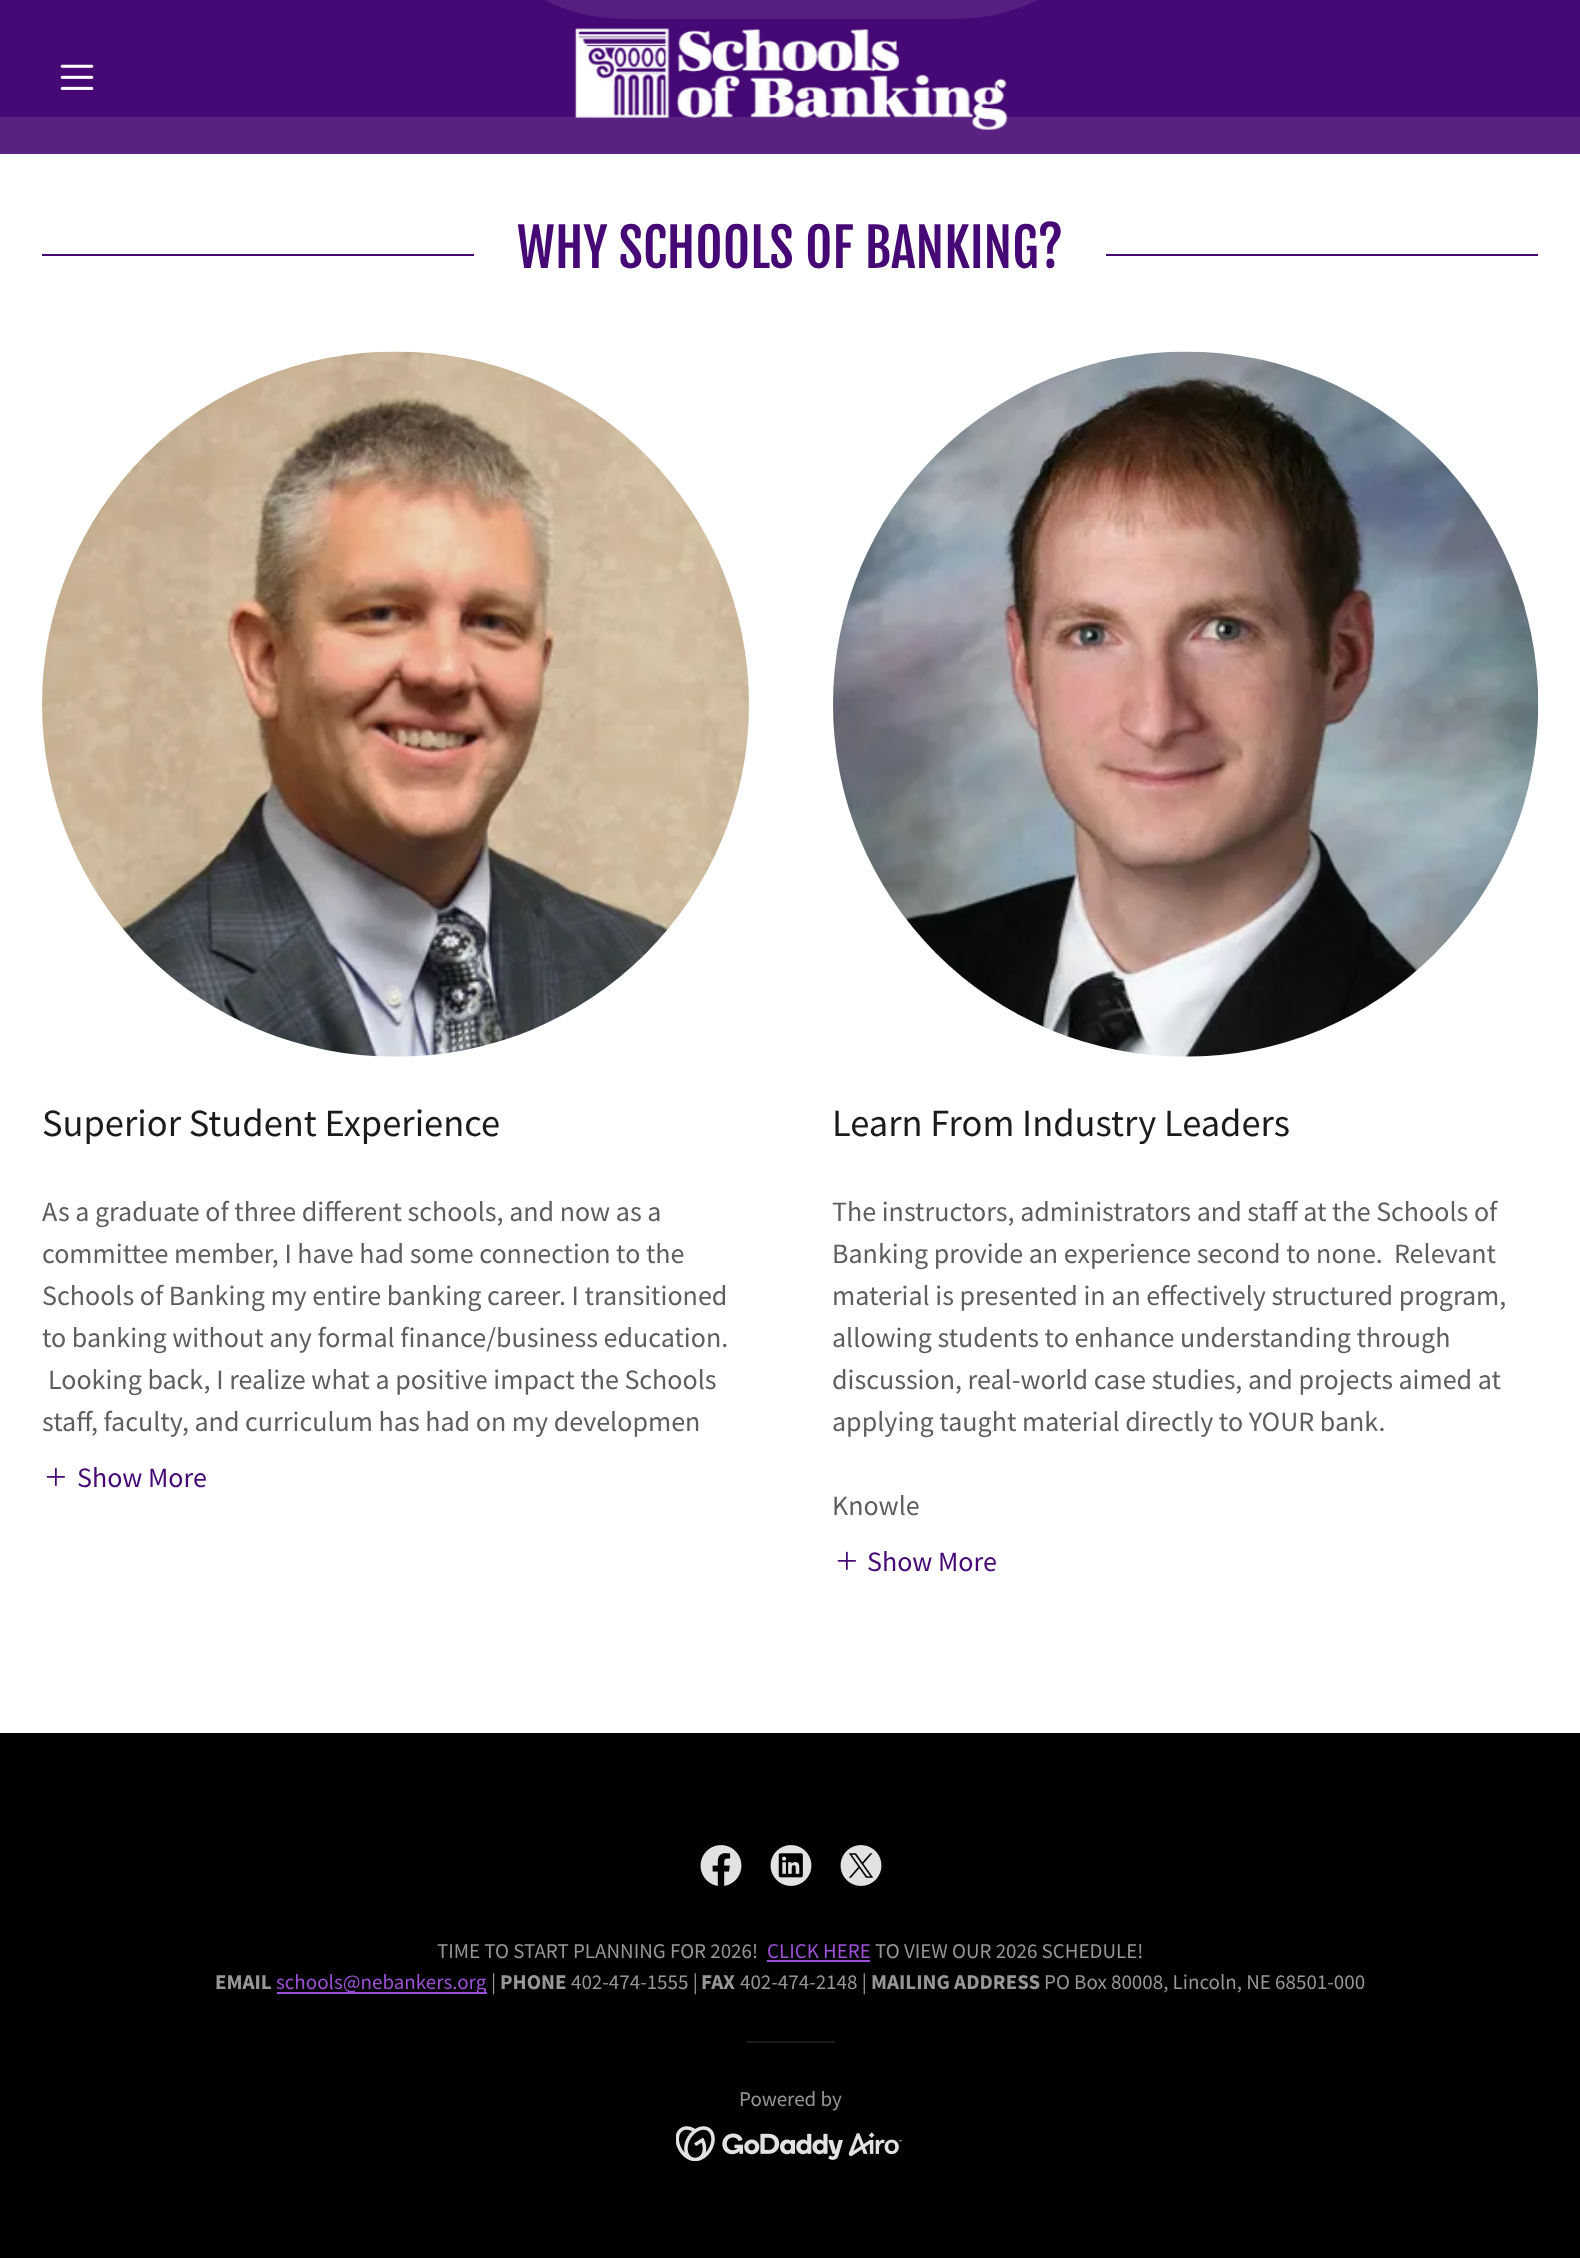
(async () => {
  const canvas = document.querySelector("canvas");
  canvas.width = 1580;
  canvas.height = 2258;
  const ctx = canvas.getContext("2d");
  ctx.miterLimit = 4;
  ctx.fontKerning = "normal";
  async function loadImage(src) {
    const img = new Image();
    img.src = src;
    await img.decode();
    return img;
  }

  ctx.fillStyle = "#000000";
  ctx.fillRect(0, 0, 1580, 2258);
  ctx.fillStyle = "#460874";
  ctx.fillRect(0, 0, 1580, 117);
  ctx.fillStyle = "#571e81";
  ctx.beginPath();
  ctx.roundRect(441, -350, 700, 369, 350);
  ctx.fill();
  ctx.drawImage(await loadImage("img/1.png"), 60, 64, 34, 26);
  ctx.fillStyle = "#592182";
  ctx.fillRect(0, 117, 1580, 37);
  ctx.drawImage(await loadImage("img/2.png"), 574, 28, 434, 102);
  for (const [x, y, w, h, color] of [
    [0, 154, 1580, 1579, "#ffffff"],
    [42, 254, 432, 2, "#460874"],
    [1106, 254, 432, 2, "#460874"],
  ]) {
    ctx.fillStyle = color;
    ctx.fillRect(x, y, w, h);
  }
  ctx.drawImage(await loadImage("img/3.png"), 42, 351, 707, 706);
  ctx.drawImage(await loadImage("img/4.png"), 46, 1467, 19, 19);
  ctx.drawImage(await loadImage("img/5.png"), 833, 351, 706, 706);
  ctx.drawImage(await loadImage("img/4.png"), 837, 1551, 19, 19);
  ctx.drawImage(await loadImage("img/6.png"), 700, 1845, 42, 41);
  ctx.drawImage(await loadImage("img/7.png"), 770, 1845, 42, 41);
  ctx.drawImage(await loadImage("img/8.png"), 840, 1845, 42, 41);
  for (const [x, y, w, h, color] of [
    [767, 1960, 103, 2, "#9d4fd6"],
    [277, 1992, 210, 2, "#9d4fd6"],
    [747, 2041, 88, 2, "#1b1b1b"],
  ]) {
    ctx.fillStyle = color;
    ctx.fillRect(x, y, w, h);
  }
  ctx.drawImage(await loadImage("img/9.png"), 676, 2126, 226, 35);
  ctx.font = "52.5px Fjalla One";
  ctx.fillStyle = "#460874";
  ctx.fillText("WHY SCHOOLS OF BANKING?", 517, 268);
  ctx.font = "38.5px Source Sans Pro";
  ctx.fillStyle = "#1b1b1b";
  ctx.fillText("Superior Student Experience", 42, 1136);
  ctx.font = "28px Source Sans Pro";
  ctx.fillStyle = "#5e5e5e";
  for (const [text, x, y] of [
    ["As a graduate of three different schools, and now as a", 42, 1221],
    ["committee member, I have had some connection to the", 42, 1263],
    ["Schools of Banking my entire banking career. I transitioned", 42, 1305],
    ["to banking without any formal finance/business education.", 42, 1347],
    ["Looking back, I realize what a positive impact the Schools", 48, 1389],
    ["staff, faculty, and curriculum has had on my developmen", 42, 1431],
  ]) {
    ctx.fillText(text, x, y);
  }
  ctx.fillStyle = "#460874";
  ctx.fillText("Show More", 77, 1487);
  ctx.font = "38.5px Source Sans Pro";
  ctx.fillStyle = "#1b1b1b";
  ctx.fillText("Learn From Industry Leaders", 832, 1136);
  ctx.font = "28px Source Sans Pro";
  ctx.fillStyle = "#5e5e5e";
  for (const [text, x, y] of [
    ["The instructors, administrators and staff at the Schools of", 832, 1221],
    ["Banking provide an experience second to none.  Relevant", 832, 1263],
    ["material is presented in an effectively structured program,", 832, 1305],
    ["allowing students to enhance understanding through", 832, 1347],
    ["discussion, real-world case studies, and projects aimed at", 832, 1389],
    ["applying taught material directly to YOUR bank.", 832, 1431],
    ["Knowle", 832, 1515],
  ]) {
    ctx.fillText(text, x, y);
  }
  ctx.fillStyle = "#460874";
  ctx.fillText("Show More", 867, 1571);
  ctx.font = "21px Source Sans Pro";
  ctx.fillStyle = "#969696";
  ctx.fillText("TIME TO START PLANNING FOR 2026!", 437, 1958);
  ctx.fillStyle = "#9d4fd6";
  ctx.fillText("CLICK HERE", 767, 1958);
  ctx.fillStyle = "#969696";
  ctx.fillText("TO VIEW OUR 2026 SCHEDULE!", 875, 1958);
  ctx.font = "bold 21px Source Sans Pro";
  ctx.fillText("EMAIL", 215, 1989);
  ctx.font = "21px Source Sans Pro";
  ctx.fillStyle = "#9d4fd6";
  ctx.fillText("schools@nebankers.org", 276, 1989);
  ctx.fillStyle = "#969696";
  ctx.fillText("|", 491, 1989);
  ctx.font = "bold 21px Source Sans Pro";
  ctx.fillText("PHONE", 500, 1989);
  ctx.font = "21px Source Sans Pro";
  ctx.fillText("402-474-1555 |", 571, 1989);
  ctx.font = "bold 21px Source Sans Pro";
  ctx.fillText("FAX", 701, 1989);
  ctx.font = "21px Source Sans Pro";
  ctx.fillText("402-474-2148 |", 740, 1989);
  ctx.font = "bold 21px Source Sans Pro";
  ctx.fillText("MAILING ADDRESS", 871, 1989);
  ctx.font = "21px Source Sans Pro";
  ctx.fillText("PO Box 80008, Lincoln, NE 68501-000", 1044, 1989);
  ctx.fillText("Powered by", 739, 2106);
})();
